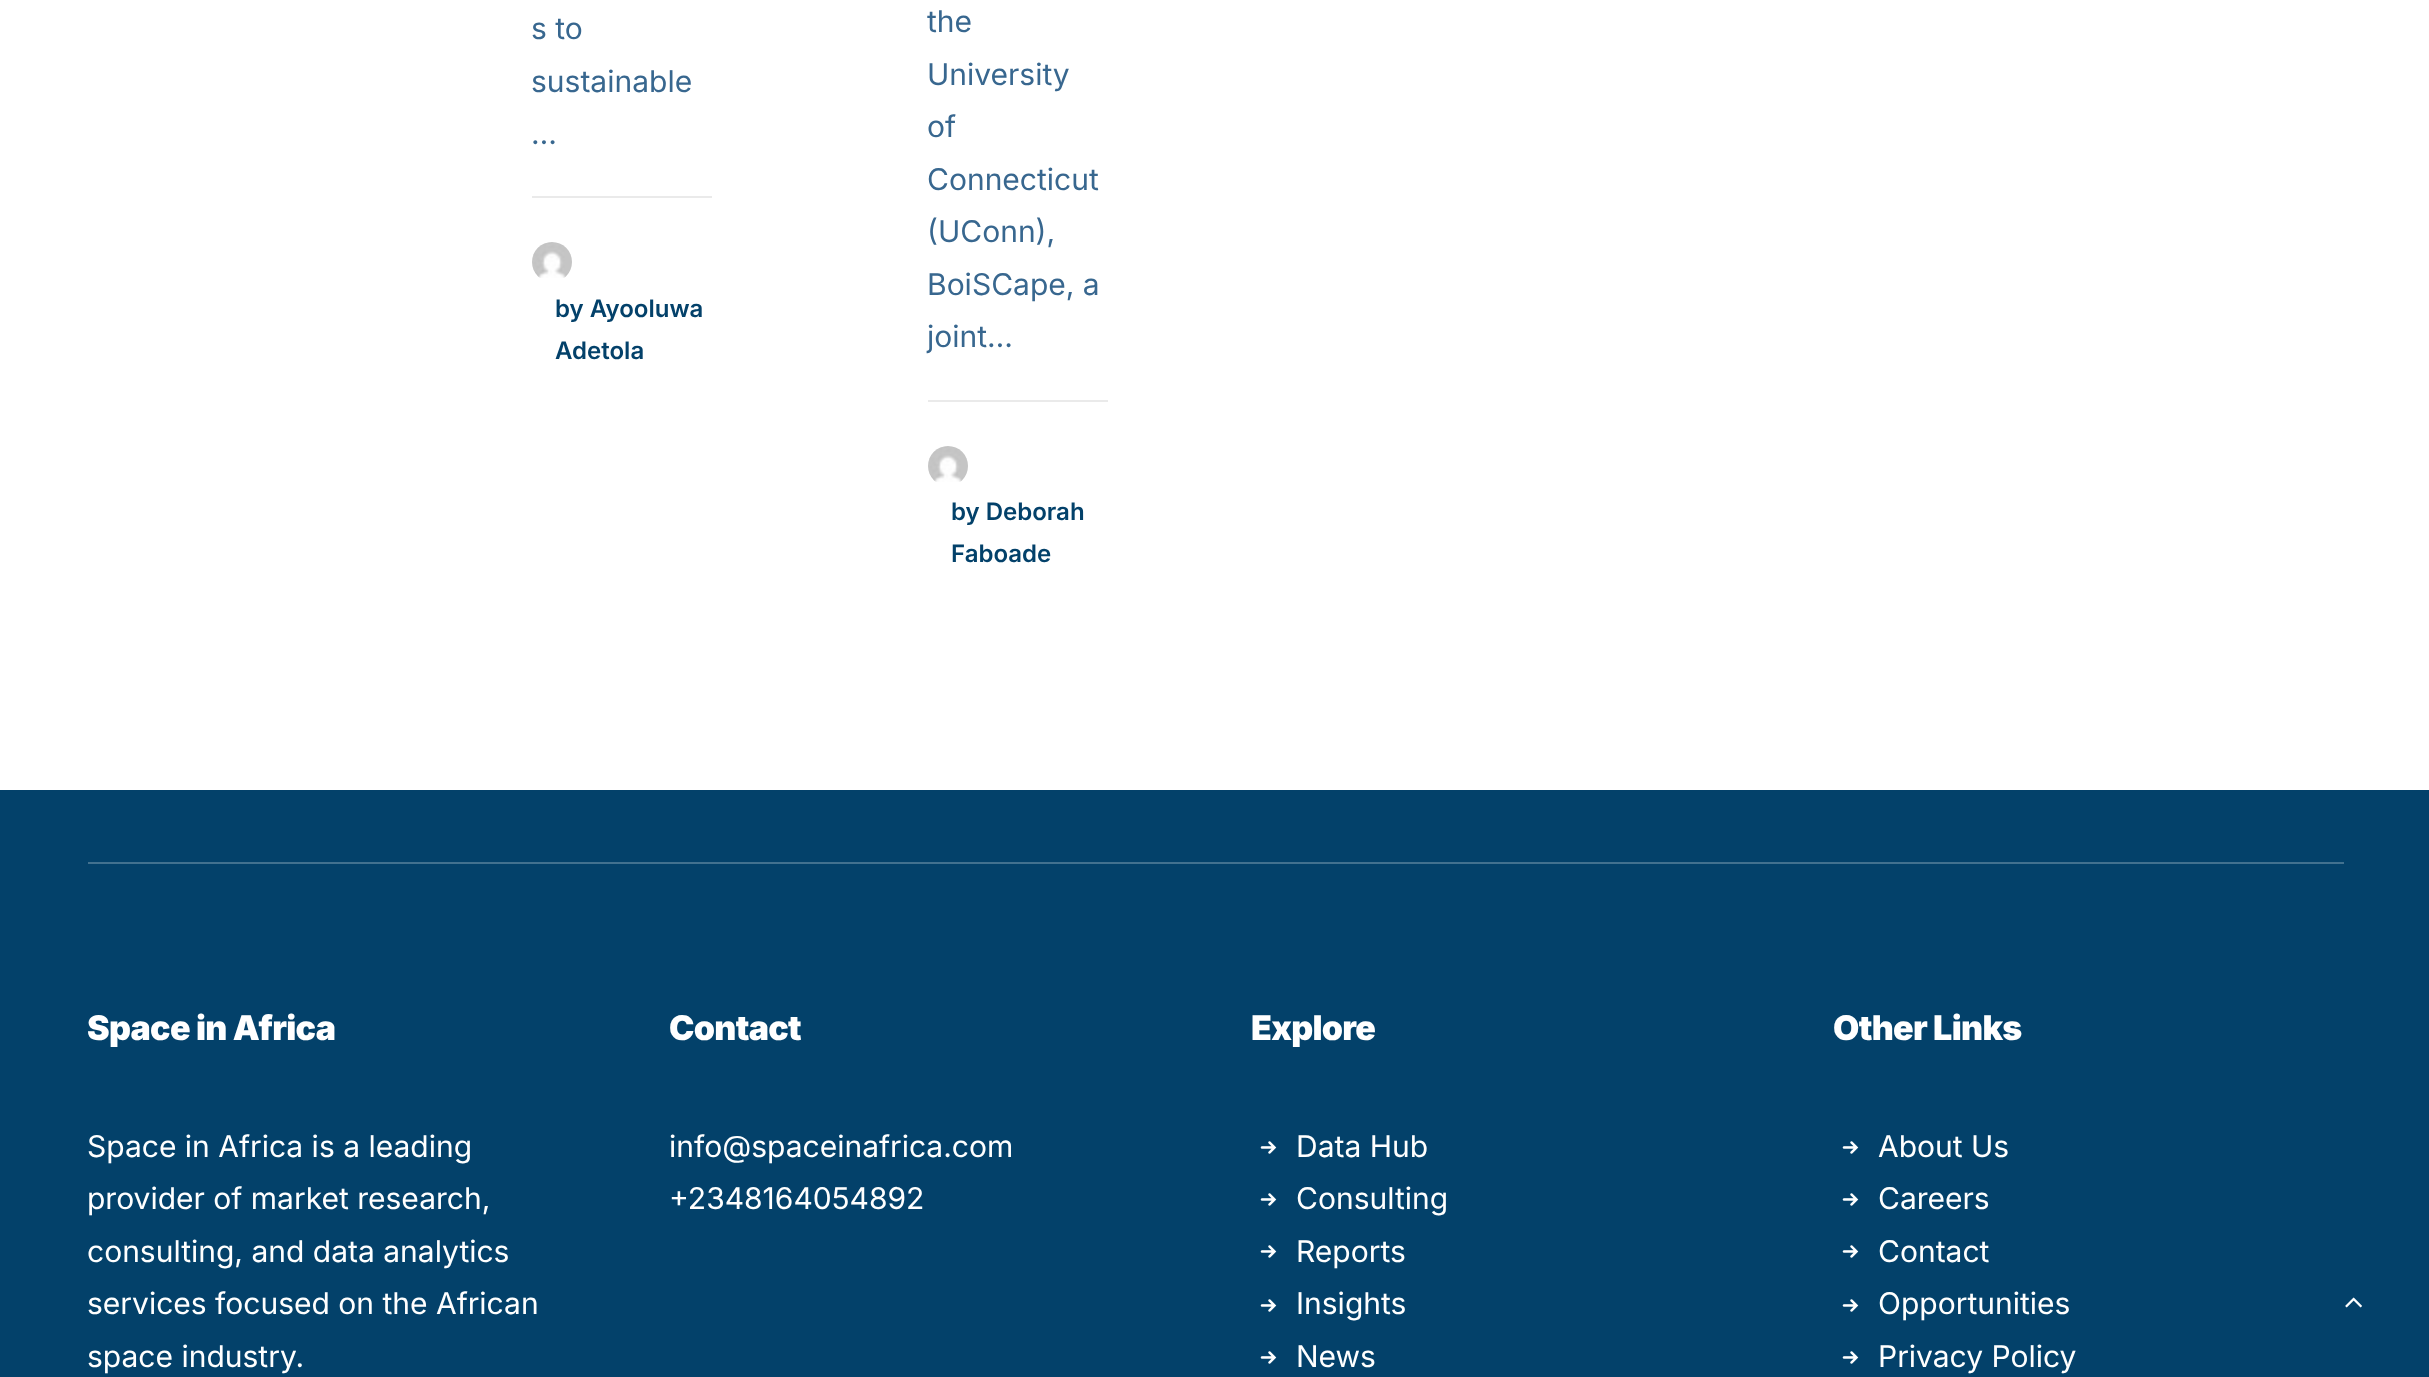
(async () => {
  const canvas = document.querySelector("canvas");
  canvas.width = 2429;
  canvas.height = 1377;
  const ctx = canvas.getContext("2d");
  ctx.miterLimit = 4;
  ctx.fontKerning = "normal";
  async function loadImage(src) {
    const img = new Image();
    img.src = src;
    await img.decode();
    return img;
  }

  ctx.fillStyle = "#ffffff";
  ctx.fillRect(0, 0, 2429, 1377);
  ctx.fillStyle = "#eaeaea";
  ctx.fillRect(532, 196, 180, 2);
  ctx.drawImage(await loadImage("img/1.png"), 532, 242, 40, 36);
  ctx.fillRect(928, 400, 180, 2);
  ctx.drawImage(await loadImage("img/1.png"), 928, 446, 40, 36);
  ctx.fillStyle = "#03416a";
  ctx.fillRect(0, 790, 2429, 587);
  ctx.fillStyle = "#42718f";
  ctx.fillRect(88, 862, 2256, 2);
  ctx.drawImage(await loadImage("img/2.png"), 1260, 1141, 17, 13);
  ctx.drawImage(await loadImage("img/2.png"), 1260, 1193, 17, 13);
  ctx.drawImage(await loadImage("img/2.png"), 1260, 1245, 17, 13);
  ctx.drawImage(await loadImage("img/2.png"), 1260, 1299, 17, 13);
  ctx.drawImage(await loadImage("img/2.png"), 1260, 1351, 17, 13);
  ctx.drawImage(await loadImage("img/2.png"), 1842, 1141, 17, 13);
  ctx.drawImage(await loadImage("img/2.png"), 1842, 1193, 17, 13);
  ctx.drawImage(await loadImage("img/2.png"), 1842, 1245, 17, 13);
  ctx.drawImage(await loadImage("img/2.png"), 1842, 1299, 17, 13);
  ctx.drawImage(await loadImage("img/2.png"), 1842, 1351, 17, 13);
  ctx.drawImage(await loadImage("img/3.png"), 2345, 1297, 17, 11);
  ctx.font = "30px Inter";
  ctx.fillStyle = "#38678f";
  for (const [text, x, y] of [
    ["s to", 531, 39],
    ["sustainable", 531, 92],
    ["…", 531, 144],
  ]) {
    ctx.fillText(text, x, y);
  }
  ctx.font = "600 24px Inter";
  ctx.fillStyle = "#03416a";
  ctx.fillText("by Ayooluwa", 555, 317);
  ctx.fillText("Adetola", 555, 359);
  ctx.font = "30px Inter";
  ctx.fillStyle = "#38678f";
  for (const [text, x, y] of [
    ["the", 927, 32],
    ["University", 927, 85],
    ["of", 927, 137],
    ["Connecticut", 927, 190],
    ["(UConn),", 927, 242],
    ["BoiSCape, a", 927, 295],
    ["joint…", 927, 347],
  ]) {
    ctx.fillText(text, x, y);
  }
  ctx.font = "600 24px Inter";
  ctx.fillStyle = "#03416a";
  ctx.fillText("by Deborah", 951, 520);
  ctx.fillText("Faboade", 951, 562);
  ctx.letterSpacing = "-0.7px";
  ctx.font = "900 34px Inter";
  ctx.fillStyle = "#ffffff";
  ctx.fillText("Space in Africa", 87, 1040);
  ctx.letterSpacing = "0px";
  ctx.font = "30px Inter";
  for (const [text, x, y] of [
    ["Space in Africa is a leading", 87, 1157],
    ["provider of market research,", 87, 1209],
    ["consulting, and data analytics", 87, 1262],
    ["services focused on the African", 87, 1314],
    ["space industry.", 87, 1367],
  ]) {
    ctx.fillText(text, x, y);
  }
  ctx.letterSpacing = "-0.7px";
  ctx.font = "900 34px Inter";
  ctx.fillText("Contact", 669, 1040);
  ctx.letterSpacing = "0px";
  ctx.font = "30px Inter";
  ctx.fillText("info@spaceinafrica.com", 669, 1157);
  ctx.fillText("+2348164054892", 669, 1209);
  ctx.letterSpacing = "-0.7px";
  ctx.font = "900 34px Inter";
  ctx.fillText("Explore", 1251, 1040);
  ctx.letterSpacing = "0px";
  ctx.font = "30px Inter";
  for (const [text, x, y] of [
    ["Data Hub", 1296, 1157],
    ["Consulting", 1296, 1209],
    ["Reports", 1296, 1262],
    ["Insights", 1296, 1314],
    ["News", 1296, 1367],
  ]) {
    ctx.fillText(text, x, y);
  }
  ctx.letterSpacing = "-0.7px";
  ctx.font = "900 34px Inter";
  ctx.fillText("Other Links", 1833, 1040);
  ctx.letterSpacing = "0px";
  ctx.font = "30px Inter";
  for (const [text, x, y] of [
    ["About Us", 1878, 1157],
    ["Careers", 1878, 1209],
    ["Contact", 1878, 1262],
    ["Opportunities", 1878, 1314],
    ["Privacy Policy", 1878, 1367],
  ]) {
    ctx.fillText(text, x, y);
  }
})();
